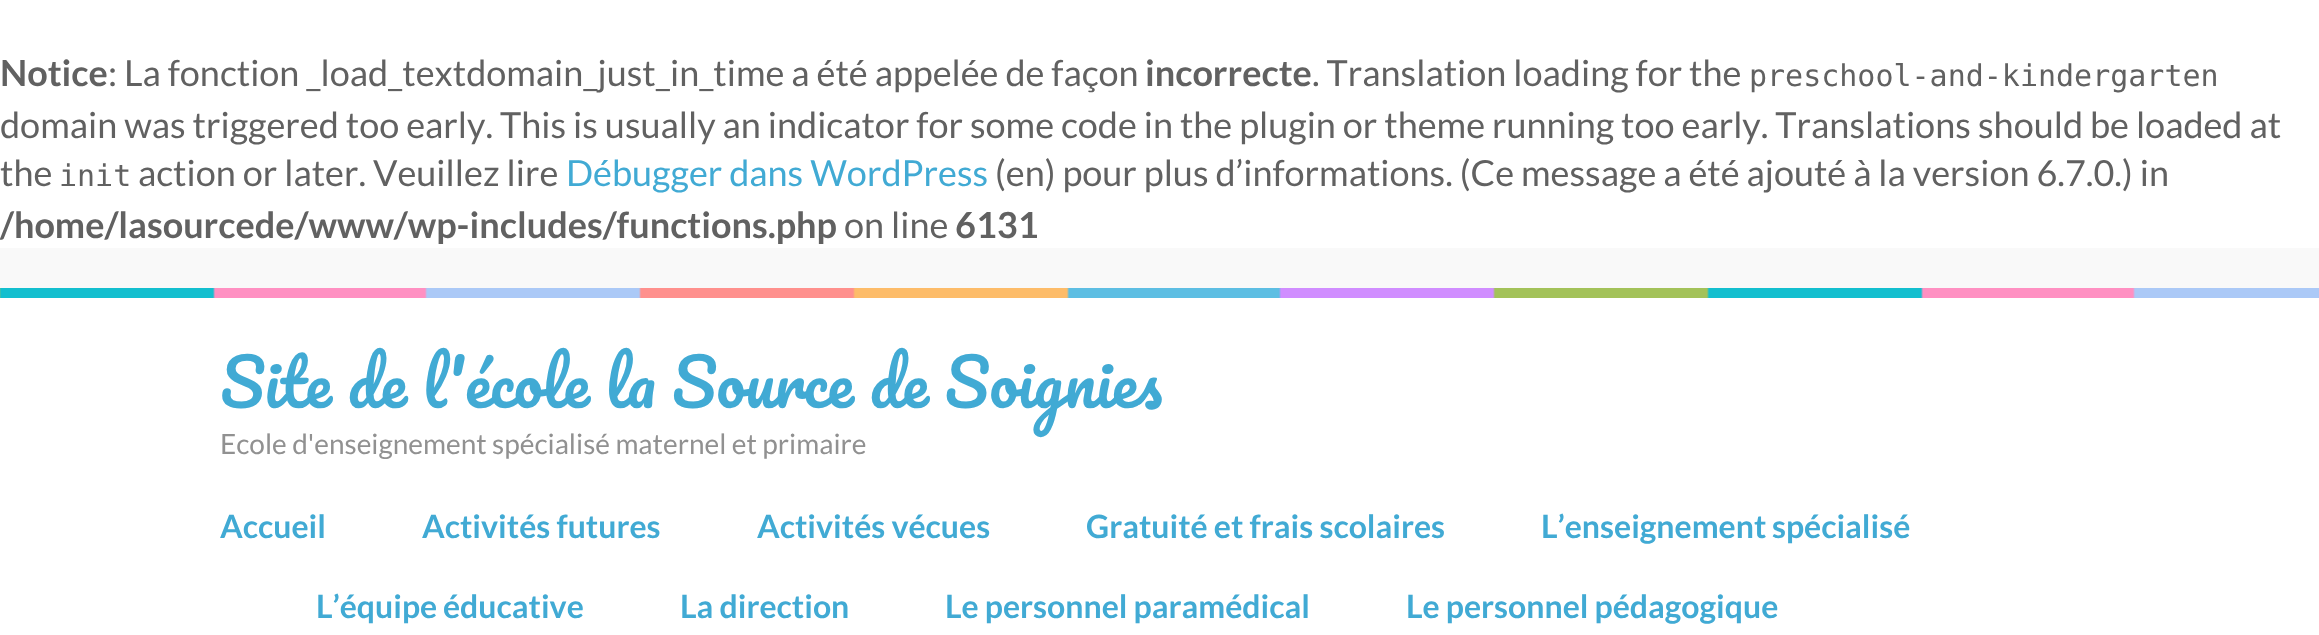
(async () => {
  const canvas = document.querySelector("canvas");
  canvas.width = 2319;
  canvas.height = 635;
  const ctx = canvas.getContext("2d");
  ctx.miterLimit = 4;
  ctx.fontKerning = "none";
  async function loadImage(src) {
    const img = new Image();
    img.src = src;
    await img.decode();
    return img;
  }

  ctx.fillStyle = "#ffffff";
  ctx.fillRect(0, 0, 2319, 635);
  ctx.fillStyle = "#f9f9f9";
  ctx.fillRect(0, 248, 2319, 40);
  ctx.drawImage(await loadImage("img/1.png"), 0, 288, 2319, 10);
  ctx.font = "bold 36px Lato";
  ctx.fillStyle = "#616161";
  ctx.fillText("Notice", 0, 86);
  ctx.font = "36px Lato";
  ctx.fillText(": La fonction _load_textdomain_just_in_time a été appelée de façon", 108, 86);
  ctx.font = "bold 36px Lato";
  ctx.fillText("incorrecte", 1145, 86);
  ctx.font = "36px Lato";
  ctx.fillText(". Translation loading for the", 1312, 86);
  ctx.font = "30px DejaVu Sans Mono";
  ctx.fillText("preschool-and-kindergarten", 1749, 86);
  ctx.font = "36px Lato";
  ctx.fillText("domain was triggered too early. This is usually an indicator for some code in the plugin or theme running too early. Translations", 0, 138);
  ctx.fillText("should be loaded at", 1978, 138);
  ctx.fillText("the", 0, 186);
  ctx.font = "30px DejaVu Sans Mono";
  ctx.fillText("init", 59, 186);
  ctx.font = "36px Lato";
  ctx.fillText("action or later. Veuillez lire", 138, 186);
  ctx.fillStyle = "#41aad4";
  ctx.fillText("Débugger dans WordPress", 566, 186);
  ctx.fillStyle = "#616161";
  ctx.fillText("(en) pour plus d’informations. (Ce message a été ajouté à la version 6.7.0.) in", 995, 186);
  ctx.font = "bold 36px Lato";
  ctx.fillText("/home/lasourcede/www/wp-includes/functions.php", 0, 238);
  ctx.font = "36px Lato";
  ctx.fillText("on line", 844, 238);
  ctx.font = "bold 36px Lato";
  ctx.fillText("6131", 955, 238);
  ctx.wordSpacing = "-1px";
  ctx.font = "64px Pacifico";
  ctx.fillStyle = "#41aad4";
  ctx.fillText("Site de l'école la Source de Soignies", 220, 408);
  ctx.wordSpacing = "0px";
  ctx.font = "28px Lato";
  ctx.fillStyle = "#919191";
  ctx.fillText("Ecole d'enseignement spécialisé maternel et primaire", 220, 454);
  ctx.font = "bold 32px Lato";
  ctx.fillStyle = "#41aad4";
  for (const [text, x, y] of [
    ["Accueil", 220, 538],
    ["Activités futures", 422, 538],
    ["Activités vécues", 757, 538],
    ["Gratuité et frais scolaires", 1086, 538],
    ["L’enseignement", 1541, 538],
    ["spécialisé", 1772, 538],
    ["L’équipe", 316, 618],
    ["éducative", 443, 618],
    ["La direction", 680, 618],
    ["Le personnel paramédical", 945, 618],
    ["Le personnel pédagogique", 1406, 618],
  ]) {
    ctx.fillText(text, x, y);
  }
})();
